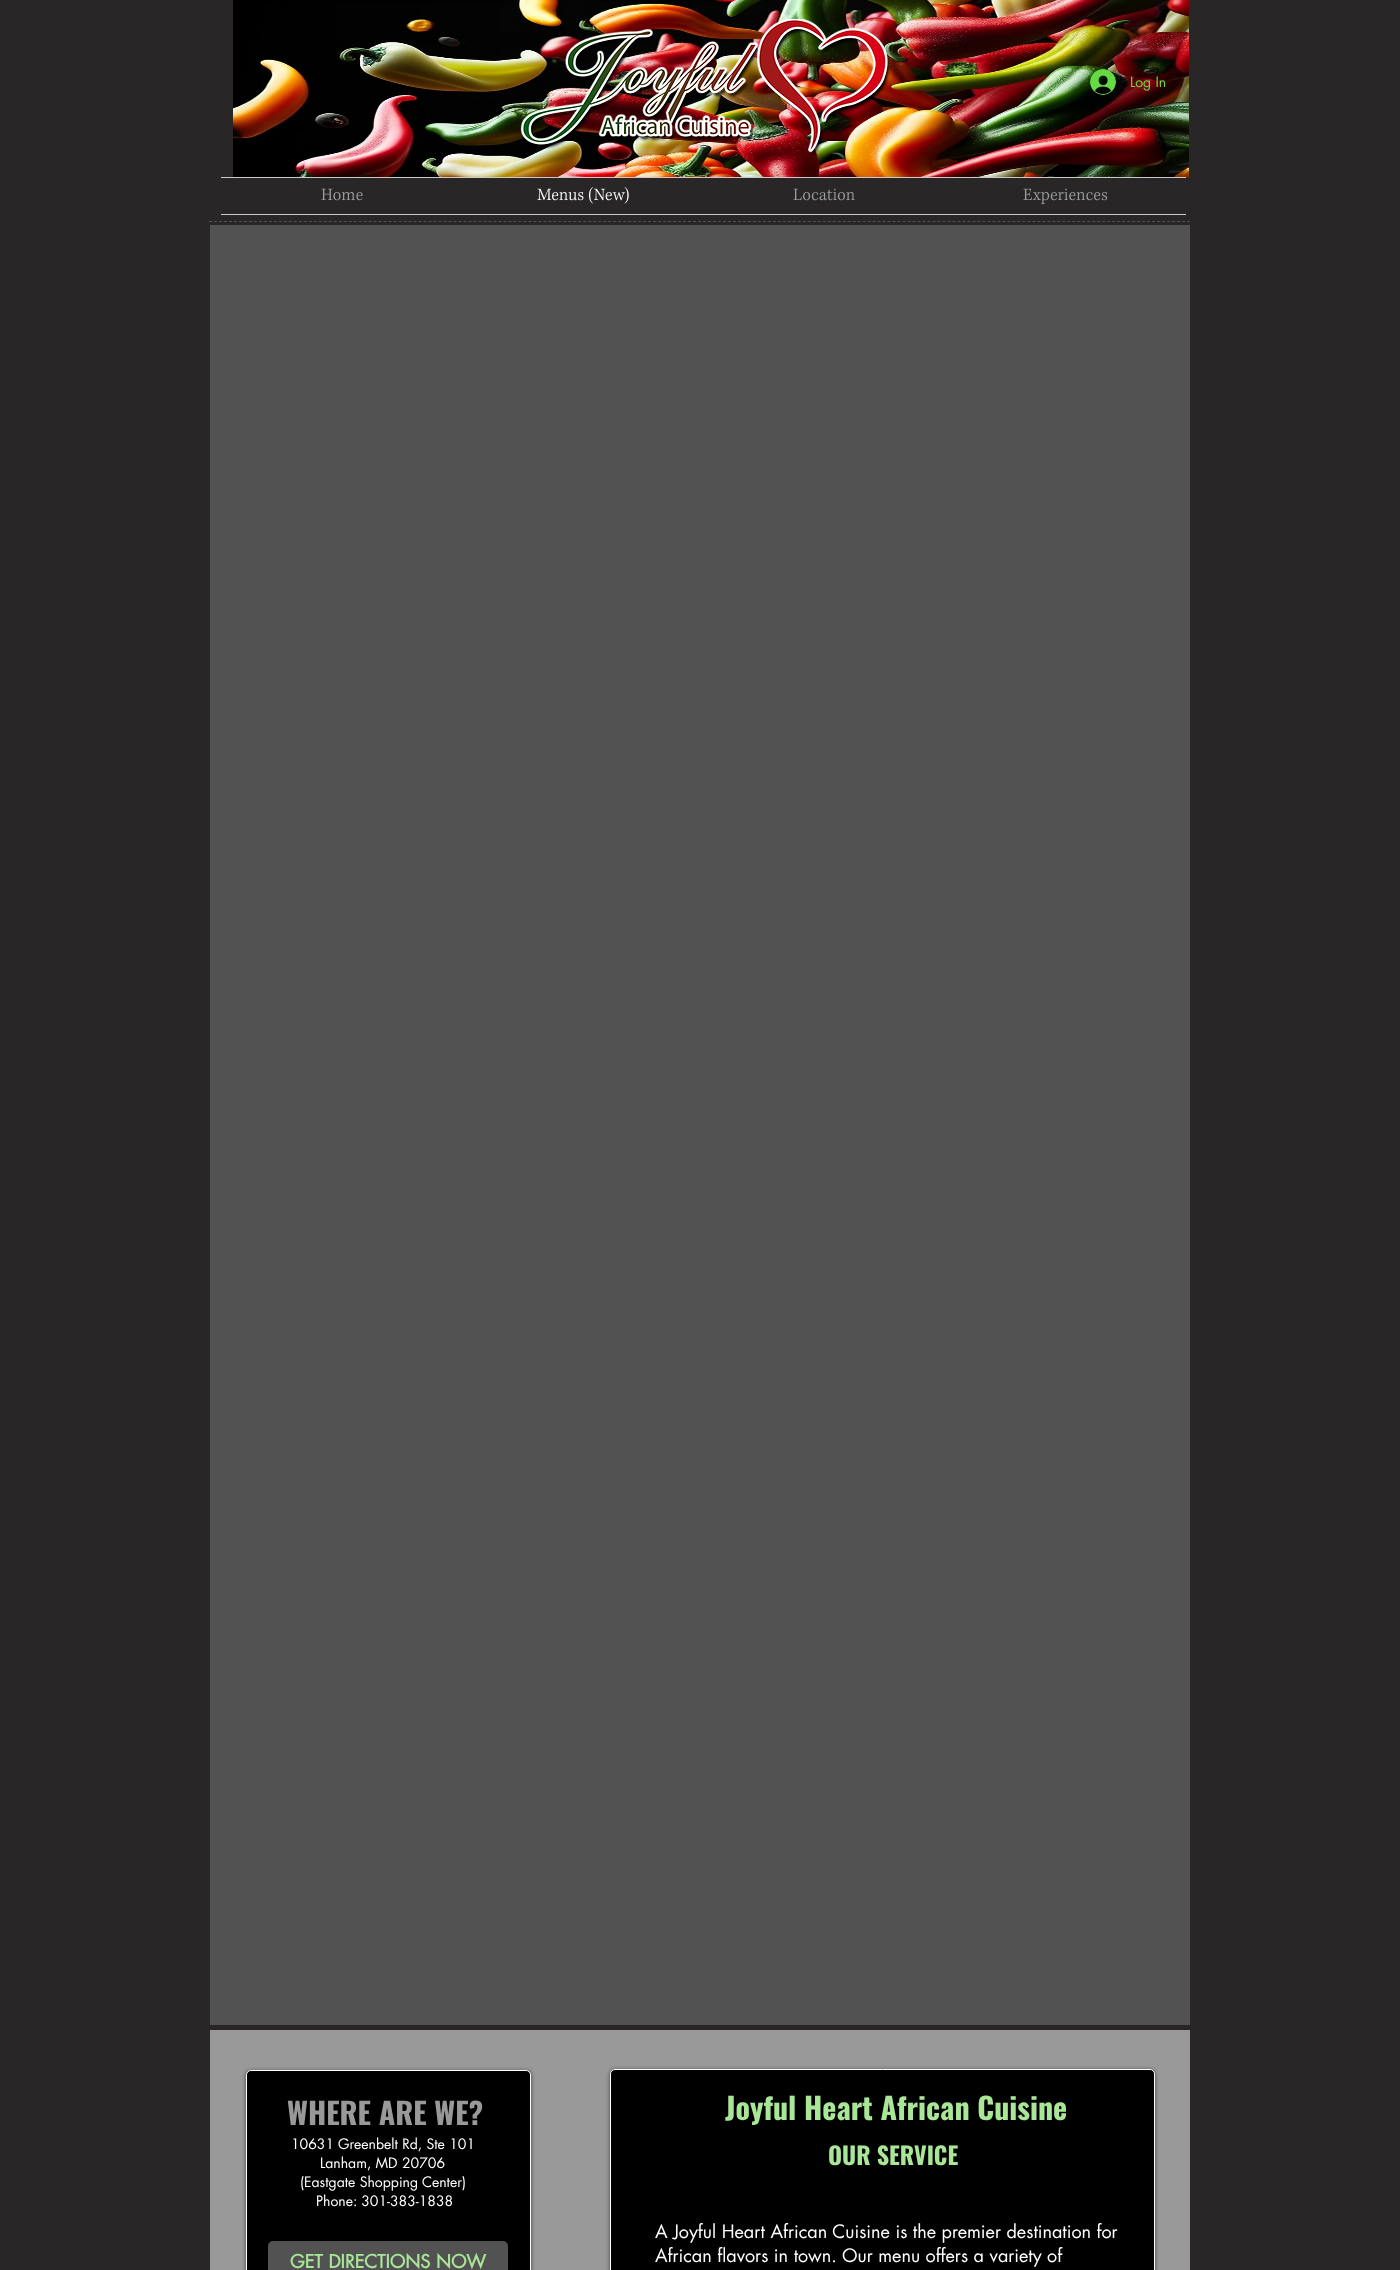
(async () => {
  const canvas = document.querySelector("canvas");
  canvas.width = 1400;
  canvas.height = 2270;
  const ctx = canvas.getContext("2d");
  ctx.miterLimit = 4;
  ctx.fontKerning = "normal";
  async function loadImage(src) {
    const img = new Image();
    img.src = src;
    await img.decode();
    return img;
  }
  let path;

  ctx.fillStyle = "#282626";
  ctx.fillRect(0, 0, 1400, 2270);
  ctx.drawImage(await loadImage("img/1.png"), 233, 0, 956, 178);
  ctx.drawImage(await loadImage("img/2.png"), 520, 19, 371, 137);
  ctx.drawImage(await loadImage("img/3.png"), 1090, 69, 26, 26);
  ctx.fillStyle = "#cacaca";
  ctx.fillRect(221, 177, 965, 1);
  ctx.fillRect(221, 214, 965, 1);
  ctx.drawImage(await loadImage("img/4.png"), 321, 188, 42, 13);
  ctx.drawImage(await loadImage("img/5.png"), 537, 187, 92, 17);
  ctx.drawImage(await loadImage("img/6.png"), 793, 188, 62, 13);
  ctx.drawImage(await loadImage("img/7.png"), 1023, 188, 85, 17);
  path = new Path2D("M209 221.5H1191");
  ctx.strokeStyle = "#525252";
  ctx.setLineDash([3, 1.99]);
  ctx.stroke(path);
  ctx.fillStyle = "#525252";
  ctx.fillRect(210, 225, 980, 1800);
  ctx.fillStyle = "#999999";
  ctx.fillRect(210, 2030, 980, 240);
  ctx.fillStyle = "rgba(0, 0, 0, 0.6)";
  ctx.filter = "blur(2px)";
  ctx.beginPath();
  ctx.roundRect(246, 2071, 285, 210, 5);
  ctx.fill();
  ctx.filter = "none";
  ctx.fillStyle = "#000000";
  ctx.beginPath();
  ctx.roundRect(246.5, 2070.5, 284, 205, 4.5);
  ctx.fill();
  ctx.strokeStyle = "#ffffff";
  ctx.setLineDash([]);
  ctx.stroke();
  ctx.fillStyle = "#525252";
  ctx.beginPath();
  ctx.roundRect(268, 2241, 240, 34, 5);
  ctx.fill();
  ctx.fillStyle = "rgba(0, 0, 0, 0.6)";
  ctx.filter = "blur(2px)";
  ctx.beginPath();
  ctx.roundRect(610, 2070, 545, 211, 5);
  ctx.fill();
  ctx.filter = "none";
  ctx.fillStyle = "#000000";
  ctx.beginPath();
  ctx.roundRect(610.5, 2069.5, 544, 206, 4.5);
  ctx.fill();
  ctx.stroke();
  ctx.font = "14px futura";
  ctx.fillStyle = "#66da43";
  ctx.fillText("Log In", 1130, 87);
  ctx.font = "bold 30px Oswald";
  ctx.fillStyle = "#999999";
  ctx.fillText("WHERE ARE WE?", 287, 2125);
  ctx.font = "14px futura";
  ctx.fillStyle = "#ffffff";
  for (const [text, x, y] of [
    ["10631 Greenbelt Rd, Ste 101", 291, 2149],
    ["Lanham, MD 20706", 320, 2168],
    ["(Eastgate Shopping Center)", 300, 2187],
    ["Phone: 301-383-1838", 316, 2206],
  ]) {
    ctx.fillText(text, x, y);
  }
  ctx.font = "bold 18px futura";
  ctx.fillStyle = "#a9e697";
  ctx.fillText("GET DIRECTIONS NOW", 290, 2268);
  ctx.font = "bold 30px Oswald";
  ctx.fillText("Joyful Heart African Cuisine", 725, 2120);
  ctx.font = "bold 24px Oswald";
  ctx.fillText("OUR SERVICE", 828, 2165);
  ctx.font = "18px futura";
  ctx.fillStyle = "#ffffff";
  ctx.fillText("A Joyful Heart African Cuisine is the premier destination for", 655, 2238);
  ctx.fillText("African flavors in town. Our menu offers a variety of", 655, 2262);
})();
